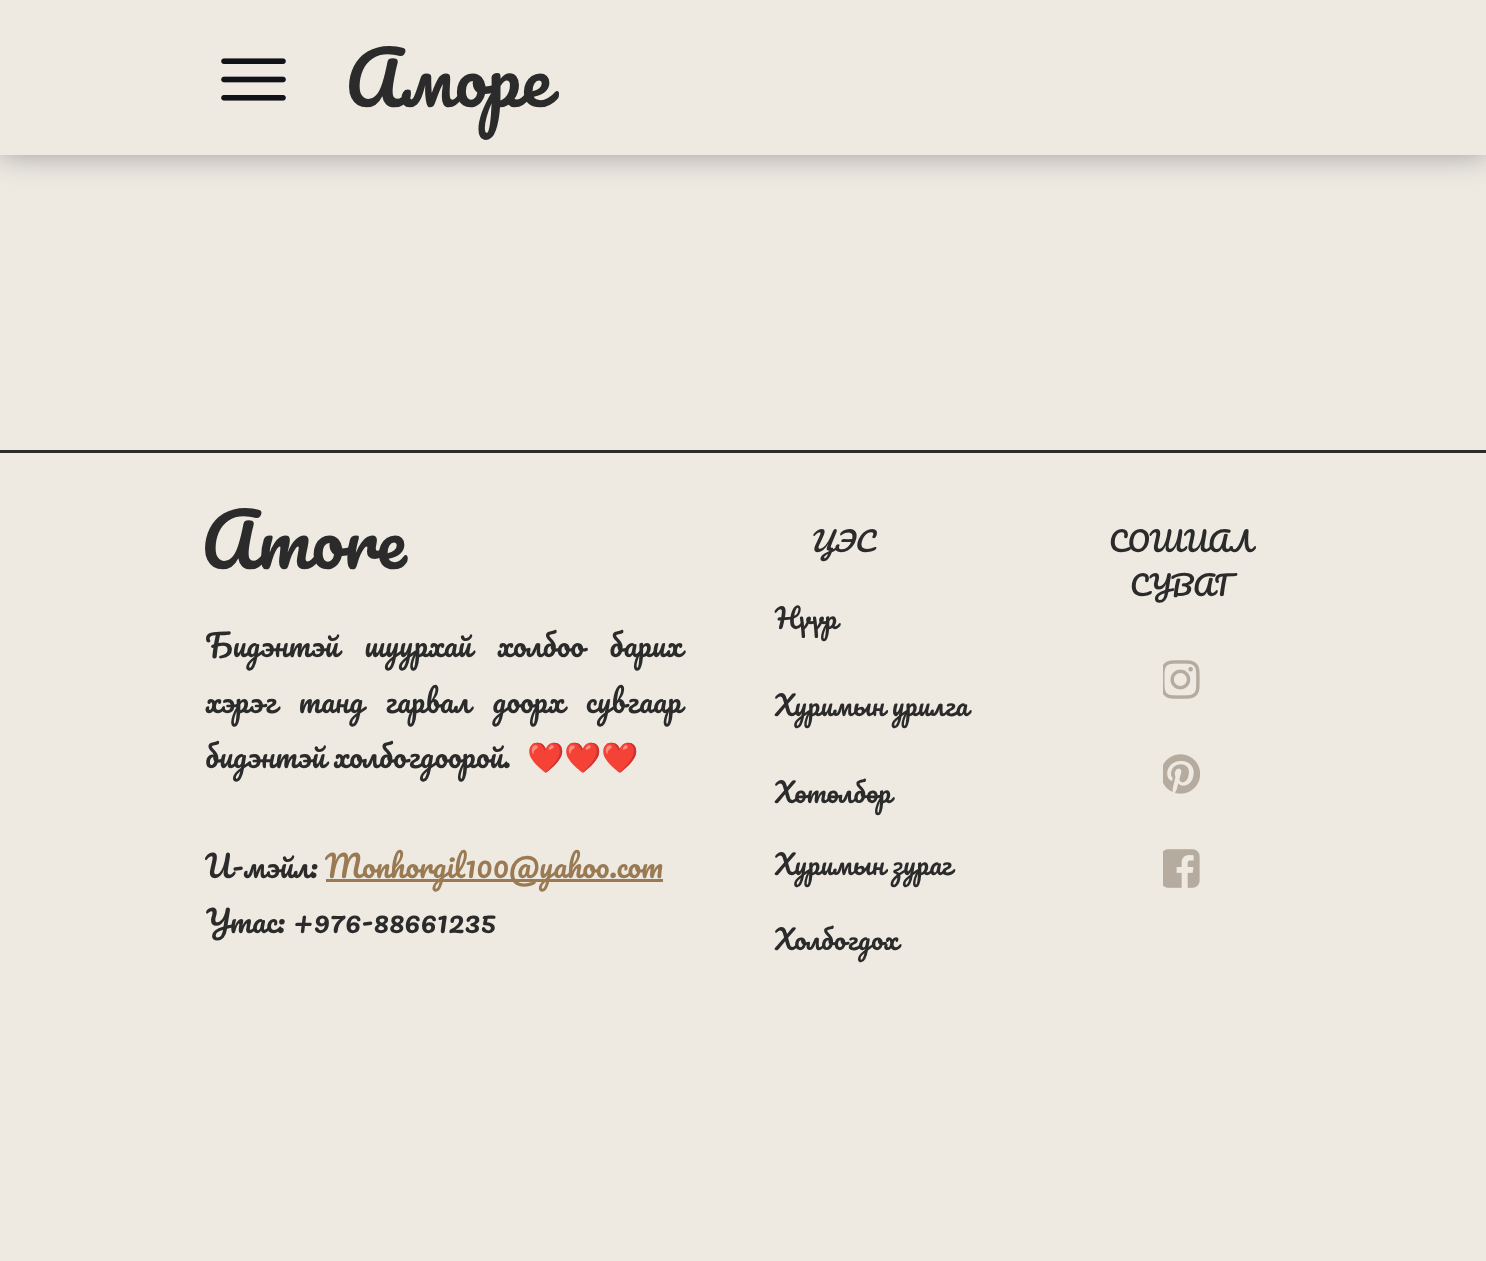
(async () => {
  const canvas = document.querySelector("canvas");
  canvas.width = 1486;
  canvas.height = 1261;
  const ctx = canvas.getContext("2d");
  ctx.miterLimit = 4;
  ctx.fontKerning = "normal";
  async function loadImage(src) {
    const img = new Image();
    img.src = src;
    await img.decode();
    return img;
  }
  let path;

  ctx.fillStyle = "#eeeae2";
  ctx.fillRect(0, 0, 1486, 1261);
  ctx.save();
  path = new Path2D("M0 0H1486V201H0ZM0 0H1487V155H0Z");
  ctx.clip(path, "evenodd");
  ctx.fillStyle = "#9c9c9c";
  ctx.filter = "blur(15px)";
  ctx.beginPath();
  ctx.rect(0, 0, 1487, 155);
  ctx.fill();
  ctx.filter = "none";
  ctx.restore();
  ctx.fillStyle = "rgba(238, 234, 226, 0.86)";
  ctx.fillRect(0, 154, 1486, 1);
  ctx.drawImage(await loadImage("img/1.png"), 221, 58, 65, 43);
  ctx.fillStyle = "#2b2b2b";
  ctx.fillRect(0, 450, 1486, 3);
  ctx.fillStyle = "#9a7a53";
  ctx.fillRect(326, 879, 337, 3);
  ctx.drawImage(await loadImage("img/2.png"), 1163, 660, 37, 39);
  ctx.drawImage(await loadImage("img/3.png"), 1163, 754, 37, 40);
  ctx.drawImage(await loadImage("img/4.png"), 1163, 849, 37, 39);
  ctx.font = "72px Pacifico";
  ctx.fillStyle = "#2b2b2b";
  ctx.fillText("Аморе", 345, 107);
  ctx.fillText("Amore", 201, 569);
  ctx.font = "italic 27px Pacifico";
  ctx.fillText("ЦЭС", 809, 552);
  ctx.font = "27px Pacifico";
  ctx.fillText("СОШИАЛ", 1109, 552);
  ctx.fillText("СУВАГ", 1130, 596);
  ctx.wordSpacing = "17.5px";
  ctx.font = "30px Pacifico";
  ctx.fillText("Бидэнтэй шуурхай холбоо барих", 205, 657);
  ctx.wordSpacing = "14px";
  ctx.fillText("хэрэг танд гарвал доорх сувгаар", 205, 713);
  ctx.wordSpacing = "0px";
  ctx.fillText("бидэнтэй холбогдоорой.", 205, 768);
  ctx.font = "30px Noto Color Emoji";
  ctx.fillText("❤️❤️❤️", 527, 768);
  ctx.font = "30px Pacifico";
  ctx.fillText("И-мэйл:", 205, 878);
  ctx.fillStyle = "#9a7a53";
  ctx.fillText("Monhorgil100@yahoo.com", 325, 878);
  ctx.fillStyle = "#2b2b2b";
  ctx.fillText("Утас: +976-88661235", 205, 933);
  ctx.font = "27px Pacifico";
  for (const [text, x, y] of [
    ["Нүүр", 775, 629],
    ["Хуримын урилга", 775, 716],
    ["Хөтөлбөр", 775, 803],
    ["Хуримын зураг", 775, 875],
    ["Холбогдох", 775, 950],
  ]) {
    ctx.fillText(text, x, y);
  }
})();
